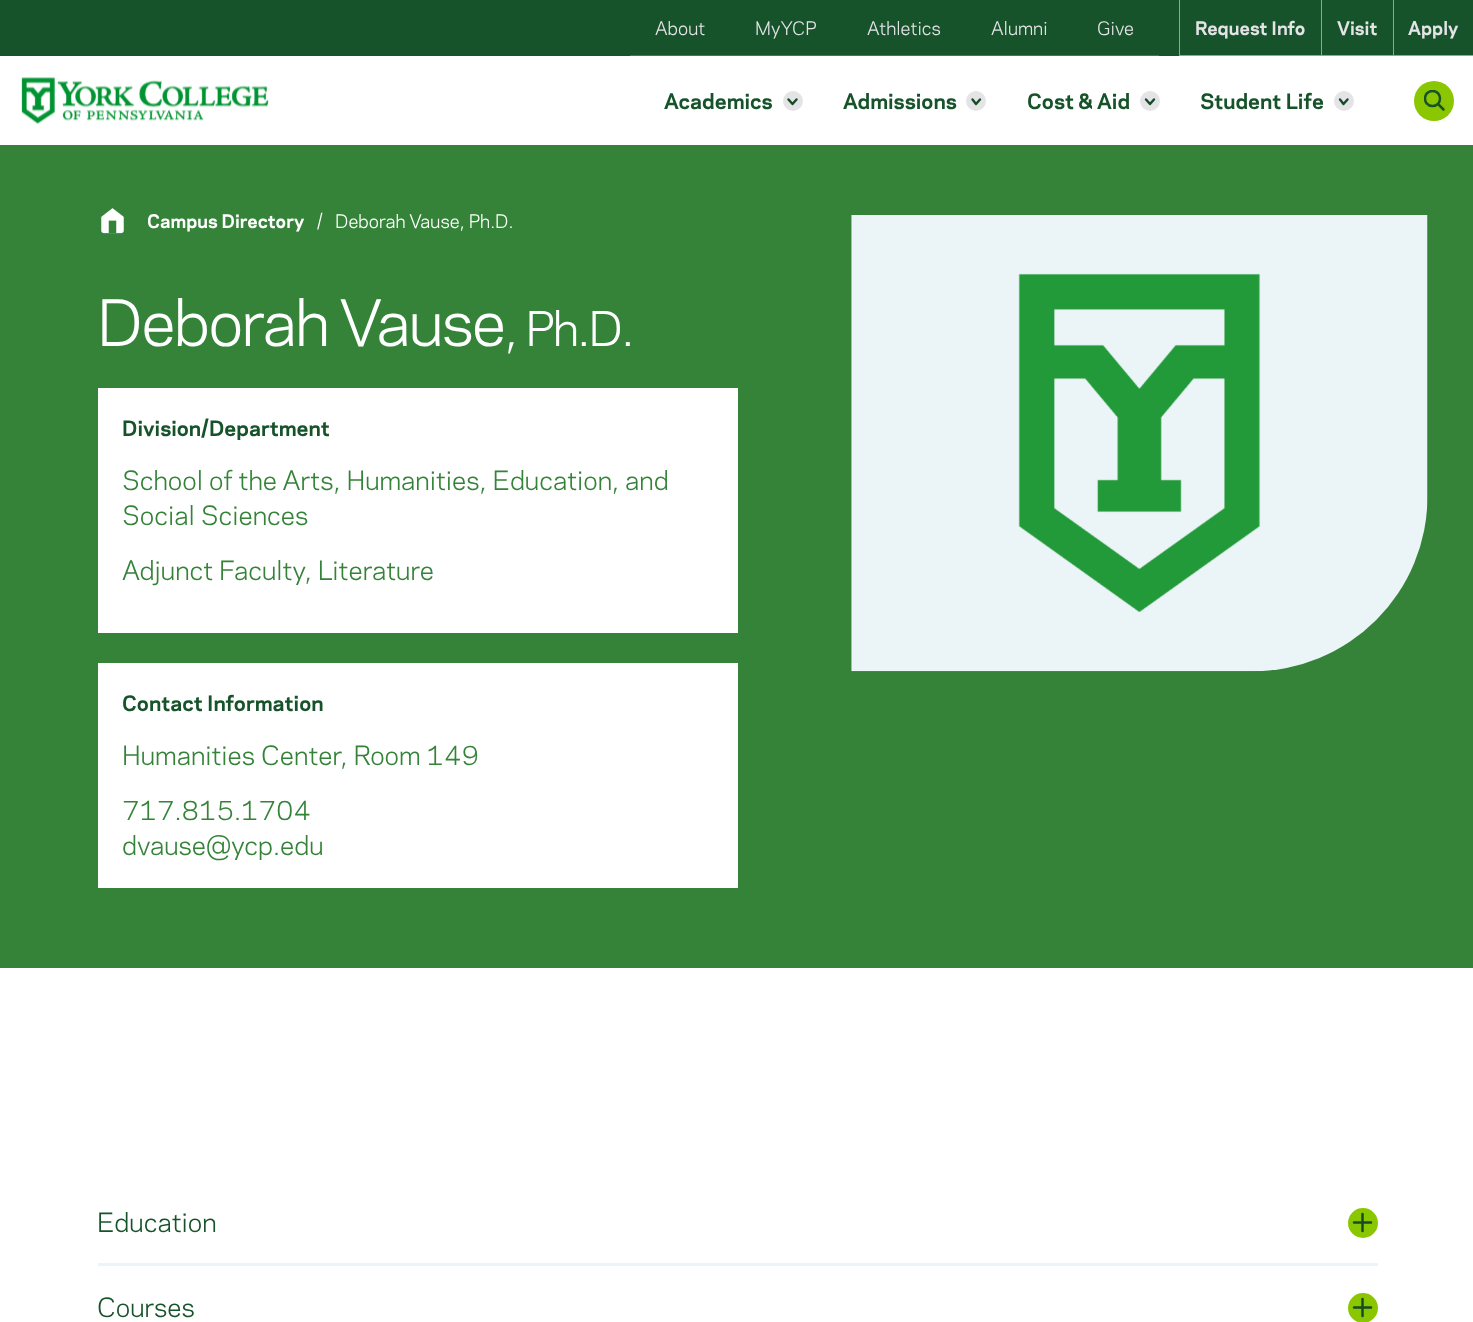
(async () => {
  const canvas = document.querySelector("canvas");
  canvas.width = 1473;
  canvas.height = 1322;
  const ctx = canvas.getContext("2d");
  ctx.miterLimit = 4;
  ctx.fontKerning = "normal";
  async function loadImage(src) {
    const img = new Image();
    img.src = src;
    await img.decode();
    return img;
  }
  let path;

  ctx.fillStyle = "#ffffff";
  ctx.fillRect(0, 0, 1473, 1322);
  for (const [x, y, w, h, color] of [
    [0, 0, 1473, 56, "#17532a"],
    [630, 55, 529, 1, "#348338"],
    [1179, 55, 294, 1, "#8bc700"],
    [1179, 0, 1, 56, "#8bc700"],
    [1321, 0, 1, 56, "#8bc700"],
    [1393, 0, 1, 56, "#8bc700"],
  ]) {
    ctx.fillStyle = color;
    ctx.fillRect(x, y, w, h);
  }
  ctx.drawImage(await loadImage("img/1.png"), 21, 77, 248, 48);
  ctx.fillStyle = "#e4e4e7";
  ctx.beginPath();
  ctx.arc(793, 101, 10, 0, Math.PI * 2);
  ctx.fill();
  path = new Path2D("M788.5 99.5L792.5 104L796.5 99.5");
  ctx.strokeStyle = "#154c26";
  ctx.lineWidth = 2.4;
  ctx.lineCap = "round";
  ctx.lineJoin = "round";
  ctx.stroke(path);
  ctx.beginPath();
  ctx.arc(976, 101, 10, 0, Math.PI * 2);
  ctx.fill();
  path = new Path2D("M972.5 99.5L976 104L980 99.5");
  ctx.stroke(path);
  ctx.beginPath();
  ctx.arc(1150, 101, 10, 0, Math.PI * 2);
  ctx.fill();
  path = new Path2D("M1146 99.5L1150 104L1154 99.5");
  ctx.stroke(path);
  ctx.beginPath();
  ctx.arc(1344, 101, 10, 0, Math.PI * 2);
  ctx.fill();
  path = new Path2D("M1340 99.5L1343.5 104L1347.5 99.5");
  ctx.stroke(path);
  ctx.fillStyle = "#8bc700";
  ctx.beginPath();
  ctx.arc(1434, 101, 20, 0, Math.PI * 2);
  ctx.fill();
  ctx.save();
  ctx.beginPath();
  ctx.rect(1424, 90, 21, 21);
  ctx.clip();
  path = new Path2D("M1432.5 106C1442.5 106 1442.5 91 1432.5 91C1422.5 91 1422.5 106 1432.5 106Z");
  ctx.strokeStyle = "#17532a";
  ctx.lineWidth = 2.5;
  ctx.stroke(path);
  ctx.restore();
  path = new Path2D("M1443.5 109.5L1438.5 104.5");
  ctx.strokeStyle = "#17532a";
  ctx.lineWidth = 2.5;
  ctx.stroke(path);
  ctx.fillStyle = "#348338";
  ctx.fillRect(0, 145, 1473, 823);
  ctx.drawImage(await loadImage("img/2.png"), 101, 208, 23, 26);
  ctx.drawImage(await loadImage("img/3.png"), 851, 215, 577, 457);
  for (const [x, y, w, h, color] of [
    [98, 388, 640, 245, "#ffffff"],
    [98, 663, 640, 225, "#ffffff"],
    [98, 1263, 1280, 3, "#ebf4f7"],
  ]) {
    ctx.fillStyle = color;
    ctx.fillRect(x, y, w, h);
  }
  ctx.fillStyle = "#8bc700";
  ctx.beginPath();
  ctx.arc(1363, 1223, 15, 0, Math.PI * 2);
  ctx.fill();
  path = new Path2D("M1362.5 1214V1231M1354 1222.5H1371");
  ctx.strokeStyle = "#154c26";
  ctx.stroke(path);
  ctx.beginPath();
  ctx.arc(1363, 1308, 15, 0, Math.PI * 2);
  ctx.fill();
  path = new Path2D("M1362.5 1299V1316M1354 1307.5H1371");
  ctx.stroke(path);
  ctx.font = "17.5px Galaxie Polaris";
  ctx.fillStyle = "#e4e4e7";
  for (const [text, x, y] of [
    ["About", 655, 35],
    ["MyYCP", 755, 35],
    ["Athletics", 867, 35],
    ["Alumni", 991, 35],
    ["Give", 1097, 35],
  ]) {
    ctx.fillText(text, x, y);
  }
  ctx.font = "bold 17.5px Galaxie Polaris";
  for (const [text, x, y] of [
    ["Request Info", 1195, 35],
    ["Visit", 1337, 35],
    ["Apply", 1408, 35],
  ]) {
    ctx.fillText(text, x, y);
  }
  ctx.font = "bold 20px Galaxie Polaris";
  ctx.fillStyle = "#17532a";
  for (const [text, x, y] of [
    ["Academics", 664, 109],
    ["Admissions", 843, 109],
    ["Cost & Aid", 1027, 109],
    ["Student Life", 1200, 109],
  ]) {
    ctx.fillText(text, x, y);
  }
  ctx.font = "bold 17.5px Galaxie Polaris";
  ctx.fillStyle = "#ffffff";
  ctx.fillText("Campus Directory", 147, 228);
  ctx.font = "17.5px Galaxie Polaris";
  ctx.fillText("/", 317, 228);
  ctx.fillText("Deborah Vause, Ph.D.", 335, 228);
  ctx.letterSpacing = "-1.5px";
  ctx.font = "60px Galaxie Polaris";
  ctx.fillText("Deborah Vause", 97, 346);
  ctx.font = "45px Galaxie Polaris";
  ctx.fillText(", Ph.D.", 505, 346);
  ctx.letterSpacing = "0px";
  ctx.font = "bold 20px Galaxie Polaris";
  ctx.fillStyle = "#17532a";
  ctx.fillText("Division/Department", 122, 436);
  ctx.font = "25px Galaxie Polaris";
  ctx.fillStyle = "#348338";
  for (const [text, x, y] of [
    ["School of the Arts, Humanities, Education, and", 122, 490],
    ["Social Sciences", 122, 525],
    ["Adjunct Faculty, Literature", 122, 580],
  ]) {
    ctx.fillText(text, x, y);
  }
  ctx.font = "bold 20px Galaxie Polaris";
  ctx.fillStyle = "#17532a";
  ctx.fillText("Contact Information", 122, 711);
  ctx.font = "25px Galaxie Polaris";
  ctx.fillStyle = "#348338";
  for (const [text, x, y] of [
    ["Humanities Center, Room 149", 122, 765],
    ["717.815.1704", 122, 820],
    ["dvause@ycp.edu", 122, 855],
  ]) {
    ctx.fillText(text, x, y);
  }
  ctx.fillStyle = "#17532a";
  ctx.fillText("Education", 97, 1232);
  ctx.fillText("Courses", 97, 1317);
})();
